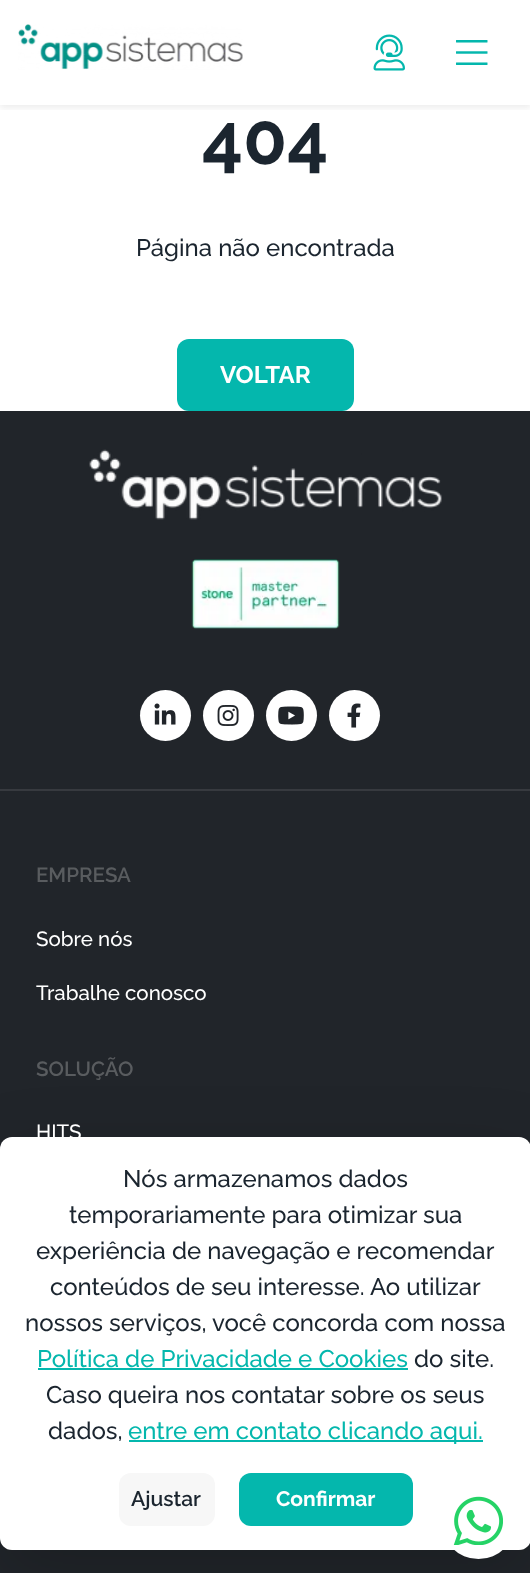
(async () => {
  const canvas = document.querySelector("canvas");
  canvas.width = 530;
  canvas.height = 1573;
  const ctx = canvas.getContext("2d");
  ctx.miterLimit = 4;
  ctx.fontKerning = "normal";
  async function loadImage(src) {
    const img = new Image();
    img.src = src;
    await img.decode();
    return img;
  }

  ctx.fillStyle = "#ffffff";
  ctx.fillRect(0, 0, 530, 1573);
  ctx.save();
  ctx.beginPath();
  ctx.rect(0, 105, 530, 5);
  ctx.clip();
  ctx.fillStyle = "rgba(0, 0, 0, 0.07)";
  ctx.filter = "blur(3px)";
  ctx.beginPath();
  ctx.rect(0, 3, 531, 105);
  ctx.fill();
  ctx.filter = "none";
  ctx.restore();
  ctx.drawImage(await loadImage("img/1.png"), 18, 24, 225, 46);
  ctx.drawImage(await loadImage("img/2.png"), 373, 34, 32, 37);
  ctx.drawImage(await loadImage("img/3.png"), 456, 40, 32, 25);
  ctx.fillStyle = "#04b7ad";
  ctx.beginPath();
  ctx.roundRect(177, 339, 177, 72, 12);
  ctx.fill();
  ctx.fillStyle = "#21252a";
  ctx.fillRect(0, 411, 530, 1162);
  ctx.drawImage(await loadImage("img/4.png"), 89, 449, 353, 71);
  ctx.drawImage(await loadImage("img/5.png"), 191, 559, 149, 70);
  ctx.fillStyle = "#ffffff";
  ctx.beginPath();
  ctx.arc(165.5, 715.5, 25.5, 0, Math.PI * 2);
  ctx.fill();
  ctx.drawImage(await loadImage("img/6.png"), 154, 703, 22, 22);
  ctx.beginPath();
  ctx.arc(228.5, 715.5, 25.5, 0, Math.PI * 2);
  ctx.fill();
  ctx.drawImage(await loadImage("img/7.png"), 217, 705, 22, 21);
  ctx.beginPath();
  ctx.arc(291.5, 715.5, 25.5, 0, Math.PI * 2);
  ctx.fill();
  ctx.drawImage(await loadImage("img/8.png"), 278, 706, 26, 19);
  ctx.beginPath();
  ctx.arc(354.5, 715.5, 25.5, 0, Math.PI * 2);
  ctx.fill();
  ctx.drawImage(await loadImage("img/9.png"), 347, 703, 14, 25);
  ctx.fillStyle = "#373a3f";
  ctx.fillRect(0, 789, 530, 2);
  ctx.fillStyle = "rgba(0, 0, 0, 0.18)";
  ctx.filter = "blur(36px)";
  ctx.beginPath();
  ctx.roundRect(0, 1161, 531, 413, 12);
  ctx.fill();
  ctx.filter = "none";
  ctx.fillStyle = "#ffffff";
  ctx.beginPath();
  ctx.roundRect(0, 1137, 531, 413, 12);
  ctx.fill();
  ctx.fillStyle = "#04b7ad";
  ctx.fillRect(38, 1368, 370, 2);
  ctx.fillRect(129, 1440, 354, 2);
  ctx.fillStyle = "#f7f7f7";
  ctx.beginPath();
  ctx.roundRect(119, 1473, 96, 53, 12);
  ctx.fill();
  ctx.fillStyle = "#04b7ad";
  ctx.beginPath();
  ctx.roundRect(239, 1473, 174, 53, 12);
  ctx.fill();
  ctx.fillStyle = "#ffffff";
  ctx.beginPath();
  ctx.arc(478.5, 1521.5, 37.5, 0, Math.PI * 2);
  ctx.fill();
  ctx.drawImage(await loadImage("img/10.png"), 453, 1496, 50, 49);
  ctx.font = "bold 72px Raleway";
  ctx.fillStyle = "#1b252f";
  ctx.fillText("404", 202, 164);
  ctx.font = "500 24px Raleway";
  ctx.fillText("Página não encontrada", 136, 256);
  ctx.font = "bold 24px Raleway";
  ctx.fillStyle = "#ffffff";
  ctx.fillText("VOLTAR", 220, 383);
  ctx.font = "600 20.5px Raleway";
  ctx.fillStyle = "#595c5f";
  ctx.fillText("EMPRESA", 36, 882);
  ctx.font = "500 20.5px Raleway";
  ctx.fillStyle = "#ffffff";
  ctx.fillText("Sobre nós", 36, 946);
  ctx.fillText("Trabalhe conosco", 36, 1000);
  ctx.font = "600 20.5px Raleway";
  ctx.fillStyle = "#595c5f";
  ctx.fillText("SOLUÇÃO", 36, 1076);
  ctx.font = "500 20.5px Raleway";
  ctx.fillStyle = "#ffffff";
  ctx.fillText("HITS", 36, 1139);
  ctx.font = "500 24px Raleway";
  ctx.fillStyle = "#1b252f";
  for (const [text, x, y] of [
    ["Nós armazenamos dados", 123, 1187],
    ["temporariamente para otimizar sua", 69, 1223],
    ["experiência de navegação e recomendar", 36, 1259],
    ["conteúdos de seu interesse. Ao utilizar", 50, 1295],
    ["nossos serviços, você concorda com nossa", 25, 1331],
  ]) {
    ctx.fillText(text, x, y);
  }
  ctx.fillStyle = "#04b7ad";
  ctx.fillText("Política de Privacidade e Cookies", 37, 1367);
  ctx.fillStyle = "#1b252f";
  for (const [text, x, y] of [
    ["do site.", 414, 1367],
    ["Caso queira nos contatar sobre os seus", 46, 1403],
    ["dados,", 48, 1439],
  ]) {
    ctx.fillText(text, x, y);
  }
  ctx.fillStyle = "#04b7ad";
  ctx.fillText("entre em contato clicando aqui.", 128, 1439);
  ctx.font = "600 21px Raleway";
  ctx.fillStyle = "#1b252f";
  ctx.fillText("Ajustar", 131, 1506);
  ctx.font = "bold 21px Raleway";
  ctx.fillStyle = "#ffffff";
  ctx.fillText("Confirmar", 276, 1506);
})();
